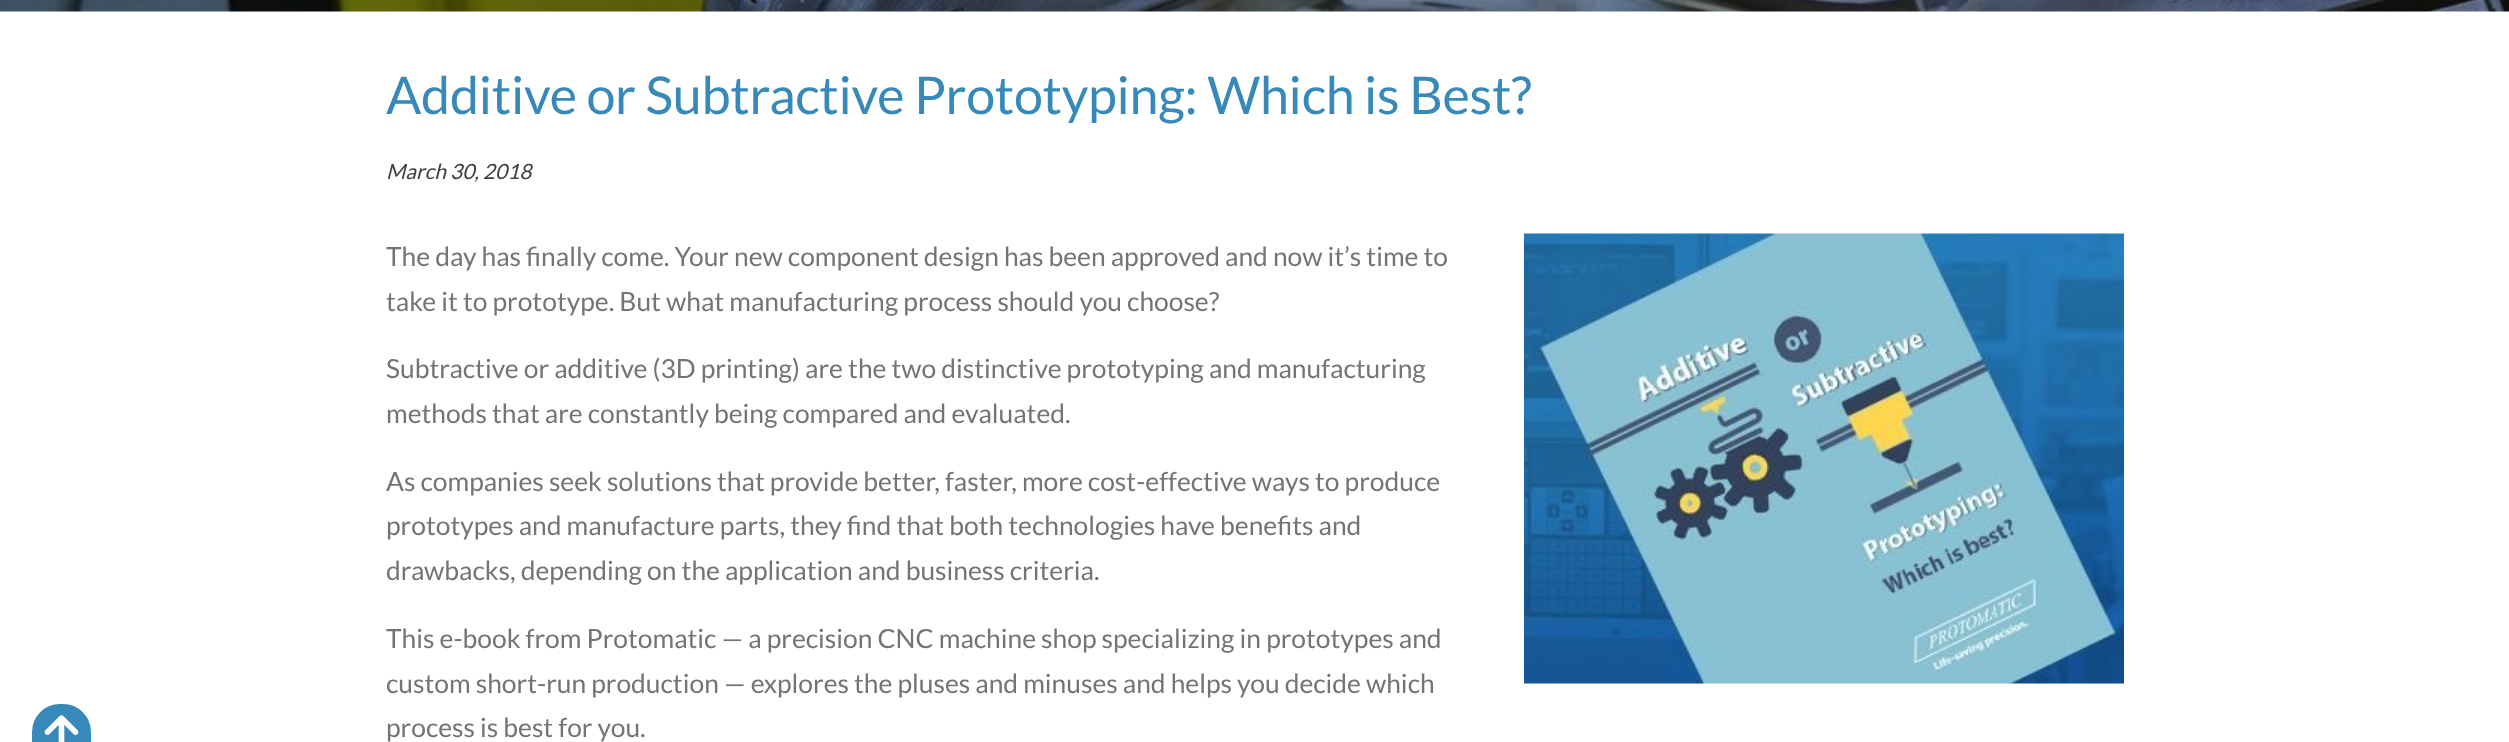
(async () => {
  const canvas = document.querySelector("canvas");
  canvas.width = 2509;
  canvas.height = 742;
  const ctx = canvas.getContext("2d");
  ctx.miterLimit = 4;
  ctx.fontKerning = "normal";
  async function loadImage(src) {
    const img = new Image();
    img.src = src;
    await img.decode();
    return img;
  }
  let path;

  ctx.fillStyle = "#ffffff";
  ctx.fillRect(0, 0, 2509, 742);
  ctx.drawImage(await loadImage("img/1.png"), 0, 0, 2509, 12);
  ctx.fillStyle = "#3789b9";
  path = new Path2D("M60 703H63C79 703 92 716 92 732V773H31V732C31 716 44 703 60 703Z");
  ctx.fill(path);
  ctx.strokeStyle = "#ffffff";
  ctx.lineWidth = 2;
  ctx.stroke(path);
  ctx.drawImage(await loadImage("img/2.png"), 44, 715, 35, 27);
  ctx.drawImage(await loadImage("img/3.png"), 1524, 233, 600, 451);
  ctx.letterSpacing = "-0.3px";
  ctx.font = "52.1px Lato";
  ctx.fillText("Additive or Subtractive Prototyping: Which is Best?", 386, 114);
  ctx.letterSpacing = "0px";
  ctx.font = "italic 21px Lato";
  ctx.fillStyle = "#404040";
  ctx.fillText("March 30, 2018", 386, 179);
  ctx.font = "26.4px Lato";
  ctx.fillStyle = "#747475";
  for (const [text, x, y] of [
    ["The day has finally come. Your new component design has been approved and now it’s time to", 386, 266],
    ["take it to prototype. But what manufacturing process should you choose?", 386, 311],
    ["Subtractive or additive (3D printing) are the two distinctive prototyping and manufacturing", 386, 378],
    ["methods that are constantly being compared and evaluated.", 386, 423],
    ["As companies seek solutions that provide better, faster, more cost-effective ways to produce", 386, 491],
    ["prototypes and manufacture parts, they find that both technologies have benefits and", 386, 535],
    ["drawbacks, depending on the application and business criteria.", 386, 580],
    ["This e-book from Protomatic — a precision CNC machine shop specializing in prototypes and", 386, 648],
    ["custom short-run production — explores the pluses and minuses and helps you decide which", 386, 693],
    ["process is best for you.", 386, 737],
  ]) {
    ctx.fillText(text, x, y);
  }
})();
